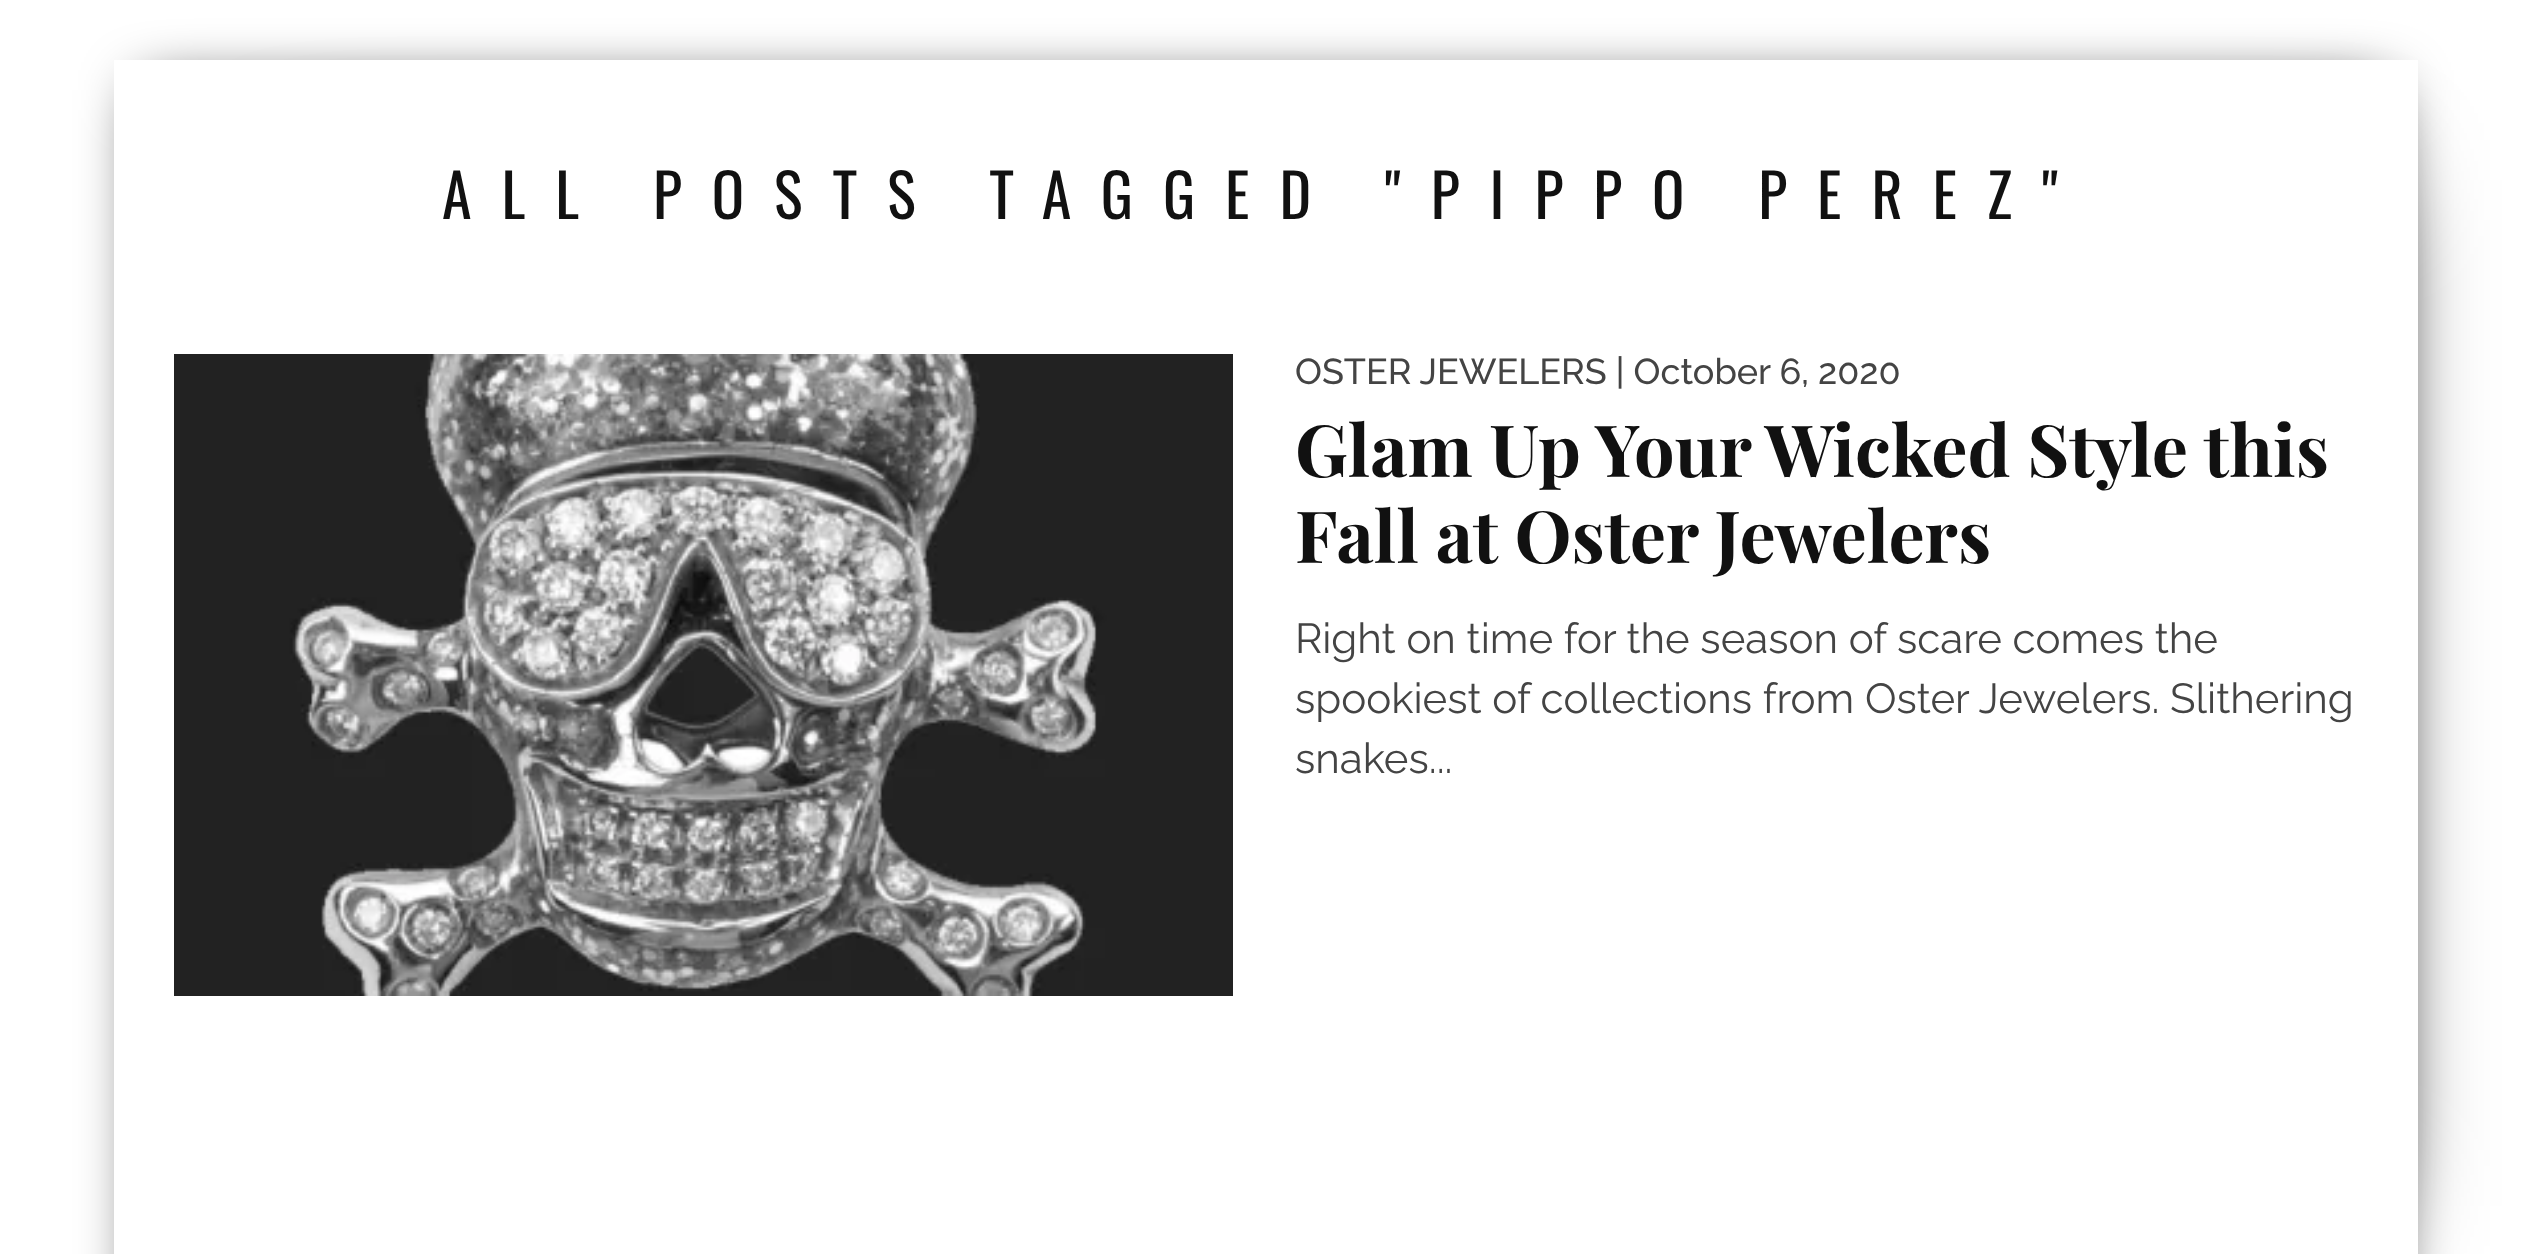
(async () => {
  const canvas = document.querySelector("canvas");
  canvas.width = 2529;
  canvas.height = 1254;
  const ctx = canvas.getContext("2d");
  ctx.miterLimit = 4;
  ctx.fontKerning = "normal";
  async function loadImage(src) {
    const img = new Image();
    img.src = src;
    await img.decode();
    return img;
  }
  let path;

  ctx.fillStyle = "#ffffff";
  ctx.fillRect(0, 0, 2529, 1254);
  ctx.save();
  path = new Path2D("M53 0H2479V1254H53ZM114 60H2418V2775H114Z");
  ctx.clip(path, "evenodd");
  ctx.fillStyle = "#000000";
  ctx.filter = "blur(30px)";
  ctx.beginPath();
  ctx.rect(144, 90, 2244, 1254);
  ctx.fill();
  ctx.filter = "none";
  ctx.restore();
  ctx.save();
  path = new Path2D("M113 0H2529V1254H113ZM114 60H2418V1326H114Z");
  ctx.clip(path, "evenodd");
  ctx.fillStyle = "#000000";
  ctx.filter = "blur(60px)";
  ctx.beginPath();
  ctx.rect(294, 180, 2064, 1026);
  ctx.fill();
  ctx.filter = "none";
  ctx.restore();
  ctx.drawImage(await loadImage("img/1.png"), 174, 354, 1059, 642);
  ctx.letterSpacing = "30px";
  ctx.font = "60px Oswald";
  ctx.fillStyle = "#111111";
  ctx.fillText("ALL POSTS TAGGED \"PIPPO PEREZ\"", 442, 219);
  ctx.letterSpacing = "0px";
  ctx.font = "500 36px Raleway";
  ctx.fillStyle = "#444444";
  ctx.fillText("OSTER JEWELERS | October 6, 2020", 1295, 384);
  ctx.font = "bold 72px Playfair Display";
  ctx.fillStyle = "#111111";
  ctx.fillText("Glam Up Your Wicked Style this", 1295, 477);
  ctx.fillText("Fall at Oster Jewelers", 1295, 563);
  ctx.font = "42px Raleway";
  ctx.fillStyle = "#444444";
  for (const [text, x, y] of [
    ["Right on time for the season of scare comes the", 1295, 653],
    ["spookiest of collections from Oster Jewelers. Slithering", 1295, 713],
    ["snakes...", 1295, 773],
  ]) {
    ctx.fillText(text, x, y);
  }
})();
